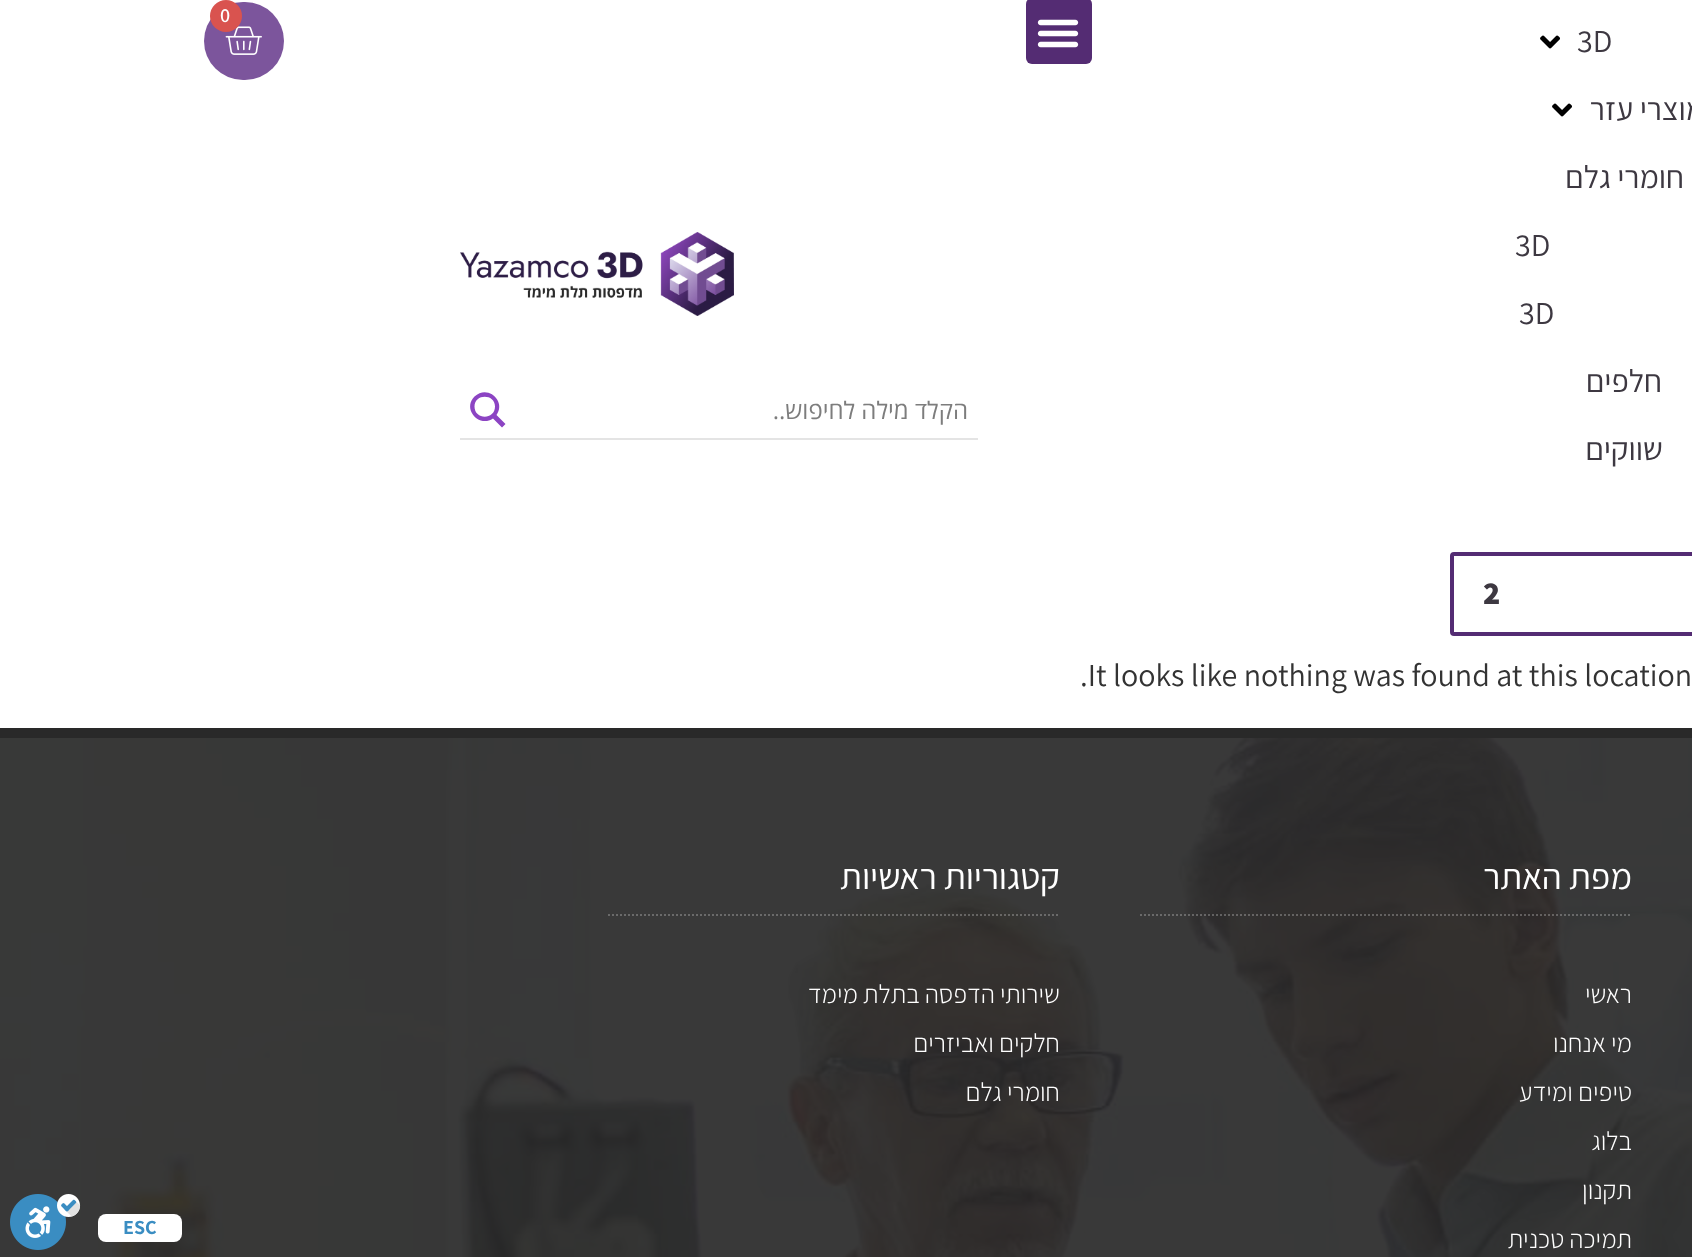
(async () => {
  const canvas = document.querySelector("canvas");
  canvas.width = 1692;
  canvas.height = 1257;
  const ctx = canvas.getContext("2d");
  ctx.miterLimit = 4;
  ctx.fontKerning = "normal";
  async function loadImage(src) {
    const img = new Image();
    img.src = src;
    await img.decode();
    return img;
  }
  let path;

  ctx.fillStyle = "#ffffff";
  ctx.fillRect(0, 0, 1692, 1257);
  ctx.fillStyle = "#7c559c";
  ctx.beginPath();
  ctx.roundRect(204, 2, 80, 78, 39);
  ctx.fill();
  ctx.drawImage(await loadImage("img/1.png"), 225, 26, 37, 29);
  ctx.fillStyle = "#d9534f";
  ctx.beginPath();
  ctx.arc(226, 16, 16, 0, Math.PI * 2);
  ctx.fill();
  ctx.drawImage(await loadImage("img/2.png"), 1540, 35, 20, 14);
  ctx.drawImage(await loadImage("img/2.png"), 1552, 103, 20, 14);
  ctx.beginPath();
  ctx.roundRect(1452, 554, 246, 80, 2);
  ctx.strokeStyle = "#542c73";
  ctx.lineWidth = 4;
  ctx.stroke();
  ctx.fillStyle = "#542c73";
  ctx.beginPath();
  ctx.roundRect(1026, -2, 66, 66, 6);
  ctx.fill();
  ctx.drawImage(await loadImage("img/3.png"), 1037, 19, 42, 29);
  ctx.drawImage(await loadImage("img/4.png"), 460, 232, 274, 84);
  ctx.fillStyle = "#e4e4e4";
  ctx.fillRect(460, 438, 518, 2);
  ctx.fillStyle = "#8c44c3";
  path = new Path2D("M505.5 424L496.5 415C506.5 401 487.5 384 474.5 396.5C462 409 479 428 493 418.5L502 427.5ZM474.5 406.5C474.5 393.5 495 393.5 495 406.5C495 420 474.5 420 474.5 406.5Z");
  ctx.fill(path);
  ctx.fillStyle = "#292929";
  ctx.fillRect(0, 728, 1692, 529);
  ctx.drawImage(await loadImage("img/5.png"), 0, 738, 1692, 519);
  path = new Path2D("M1140 915H1632");
  ctx.strokeStyle = "rgba(255, 255, 255, 0.25)";
  ctx.lineWidth = 2;
  ctx.setLineDash([2, 2]);
  ctx.stroke(path);
  path = new Path2D("M608 915H1060");
  ctx.stroke(path);
  ctx.fillStyle = "#ffffff";
  ctx.beginPath();
  ctx.roundRect(98, 1214, 84, 28, 8);
  ctx.fill();
  ctx.drawImage(await loadImage("img/6.png"), 10, 1194, 71, 56);
  ctx.font = "600 20px Assistant";
  ctx.fillText("0", 220, 22);
  ctx.font = "32px Assistant";
  ctx.fillStyle = "#3d3841";
  ctx.fillText("3D", 1577, 52);
  ctx.direction = "rtl";
  ctx.fillText("מוצרי עזר", 1705, 120);
  ctx.fillText("חומרי גלם", 1684, 188);
  ctx.direction = "ltr";
  ctx.fillText("3D", 1515, 256);
  ctx.fillText("3D", 1519, 324);
  ctx.direction = "rtl";
  ctx.fillText("חלפים", 1662, 392);
  ctx.fillText("שווקים", 1663, 460);
  ctx.direction = "ltr";
  ctx.font = "800 32px Assistant";
  ctx.fillText("2", 1483, 604);
  ctx.direction = "rtl";
  ctx.font = "24px Open Sans";
  ctx.fillStyle = "#7d7d7d";
  ctx.fillText("הקלד מילה לחיפוש..", 968, 419);
  ctx.direction = "ltr";
  ctx.font = "32px Assistant";
  ctx.fillStyle = "#333333";
  ctx.fillText(".It looks like nothing was found at this location", 1080, 686);
  ctx.direction = "rtl";
  ctx.font = "36px Assistant";
  ctx.fillStyle = "#ffffff";
  ctx.fillText("מפת האתר", 1632, 889);
  ctx.font = "300 26px Assistant";
  for (const [text, x, y] of [
    ["ראשי", 1632, 1003],
    ["מי אנחנו", 1632, 1052],
    ["טיפים ומידע", 1632, 1101],
    ["בלוג", 1632, 1150],
    ["תקנון", 1632, 1199],
    ["תמיכה טכנית", 1632, 1248],
  ]) {
    ctx.fillText(text, x, y);
  }
  ctx.font = "36px Assistant";
  ctx.fillText("קטגוריות ראשיות", 1060, 889);
  ctx.font = "300 26px Assistant";
  for (const [text, x, y] of [
    ["שירותי הדפסה בתלת מימד", 1060, 1003],
    ["חלקים ואביזרים", 1060, 1052],
    ["חומרי גלם", 1060, 1101],
  ]) {
    ctx.fillText(text, x, y);
  }
  ctx.direction = "ltr";
  ctx.font = "bold 20px Assistant";
  ctx.fillStyle = "#3a8dc2";
  ctx.fillText("ESC", 123, 1234);
})();
